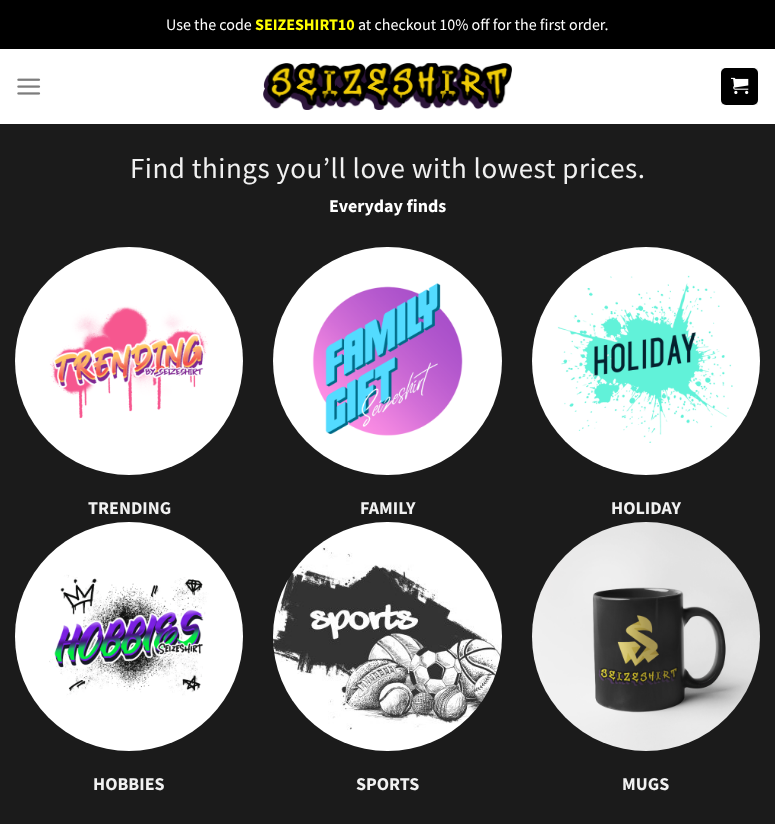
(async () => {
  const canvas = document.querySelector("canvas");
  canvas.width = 775;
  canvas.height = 824;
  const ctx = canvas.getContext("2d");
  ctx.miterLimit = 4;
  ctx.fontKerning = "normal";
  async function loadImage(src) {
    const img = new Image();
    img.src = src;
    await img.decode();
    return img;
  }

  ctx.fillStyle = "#ffffff";
  ctx.fillRect(0, 0, 775, 824);
  ctx.fillStyle = "#000000";
  ctx.fillRect(0, 0, 775, 49);
  ctx.drawImage(await loadImage("img/1.png"), 17, 78, 24, 17);
  ctx.drawImage(await loadImage("img/2.png"), 263, 63, 249, 47);
  ctx.beginPath();
  ctx.roundRect(721, 68, 37, 37, 5);
  ctx.fill();
  ctx.strokeStyle = "rgba(0, 0, 0, 0.05)";
  ctx.strokeRect(721.5, 68.5, 36, 36);
  ctx.drawImage(await loadImage("img/3.png"), 731, 77, 18, 18);
  ctx.fillStyle = "#1b1b1b";
  ctx.fillRect(0, 124, 775, 700);
  ctx.drawImage(await loadImage("img/4.png"), 15, 247, 228, 228);
  ctx.drawImage(await loadImage("img/5.png"), 273, 247, 229, 228);
  ctx.drawImage(await loadImage("img/6.png"), 532, 247, 228, 228);
  ctx.drawImage(await loadImage("img/7.png"), 15, 522, 228, 229);
  ctx.drawImage(await loadImage("img/8.png"), 273, 522, 229, 229);
  ctx.drawImage(await loadImage("img/9.png"), 532, 522, 228, 229);
  ctx.font = "16px Source Sans Pro";
  ctx.fillStyle = "#ffffff";
  ctx.fillText("Use the code", 166, 30);
  ctx.font = "bold 16px Source Sans Pro";
  ctx.fillStyle = "#ffff00";
  ctx.fillText("SEIZESHIRT10", 255, 30);
  ctx.font = "16px Source Sans Pro";
  ctx.fillStyle = "#ffffff";
  ctx.fillText("at checkout 10% off for the first order.", 358, 30);
  ctx.letterSpacing = "0.5px";
  ctx.font = "29px Source Sans Pro";
  ctx.fillStyle = "#f1f1f1";
  ctx.fillText("Find things you’ll love with lowest prices.", 130, 178);
  ctx.letterSpacing = "0px";
  ctx.font = "bold 18px Source Sans Pro";
  ctx.fillStyle = "#ffffff";
  ctx.fillText("Everyday finds", 329, 212);
  ctx.fillStyle = "#f1f1f1";
  for (const [text, x, y] of [
    ["TRENDING", 88, 514],
    ["FAMILY", 360, 514],
    ["HOLIDAY", 611, 514],
    ["HOBBIES", 93, 790],
    ["SPORTS", 356, 790],
    ["MUGS", 622, 790],
  ]) {
    ctx.fillText(text, x, y);
  }
})();
